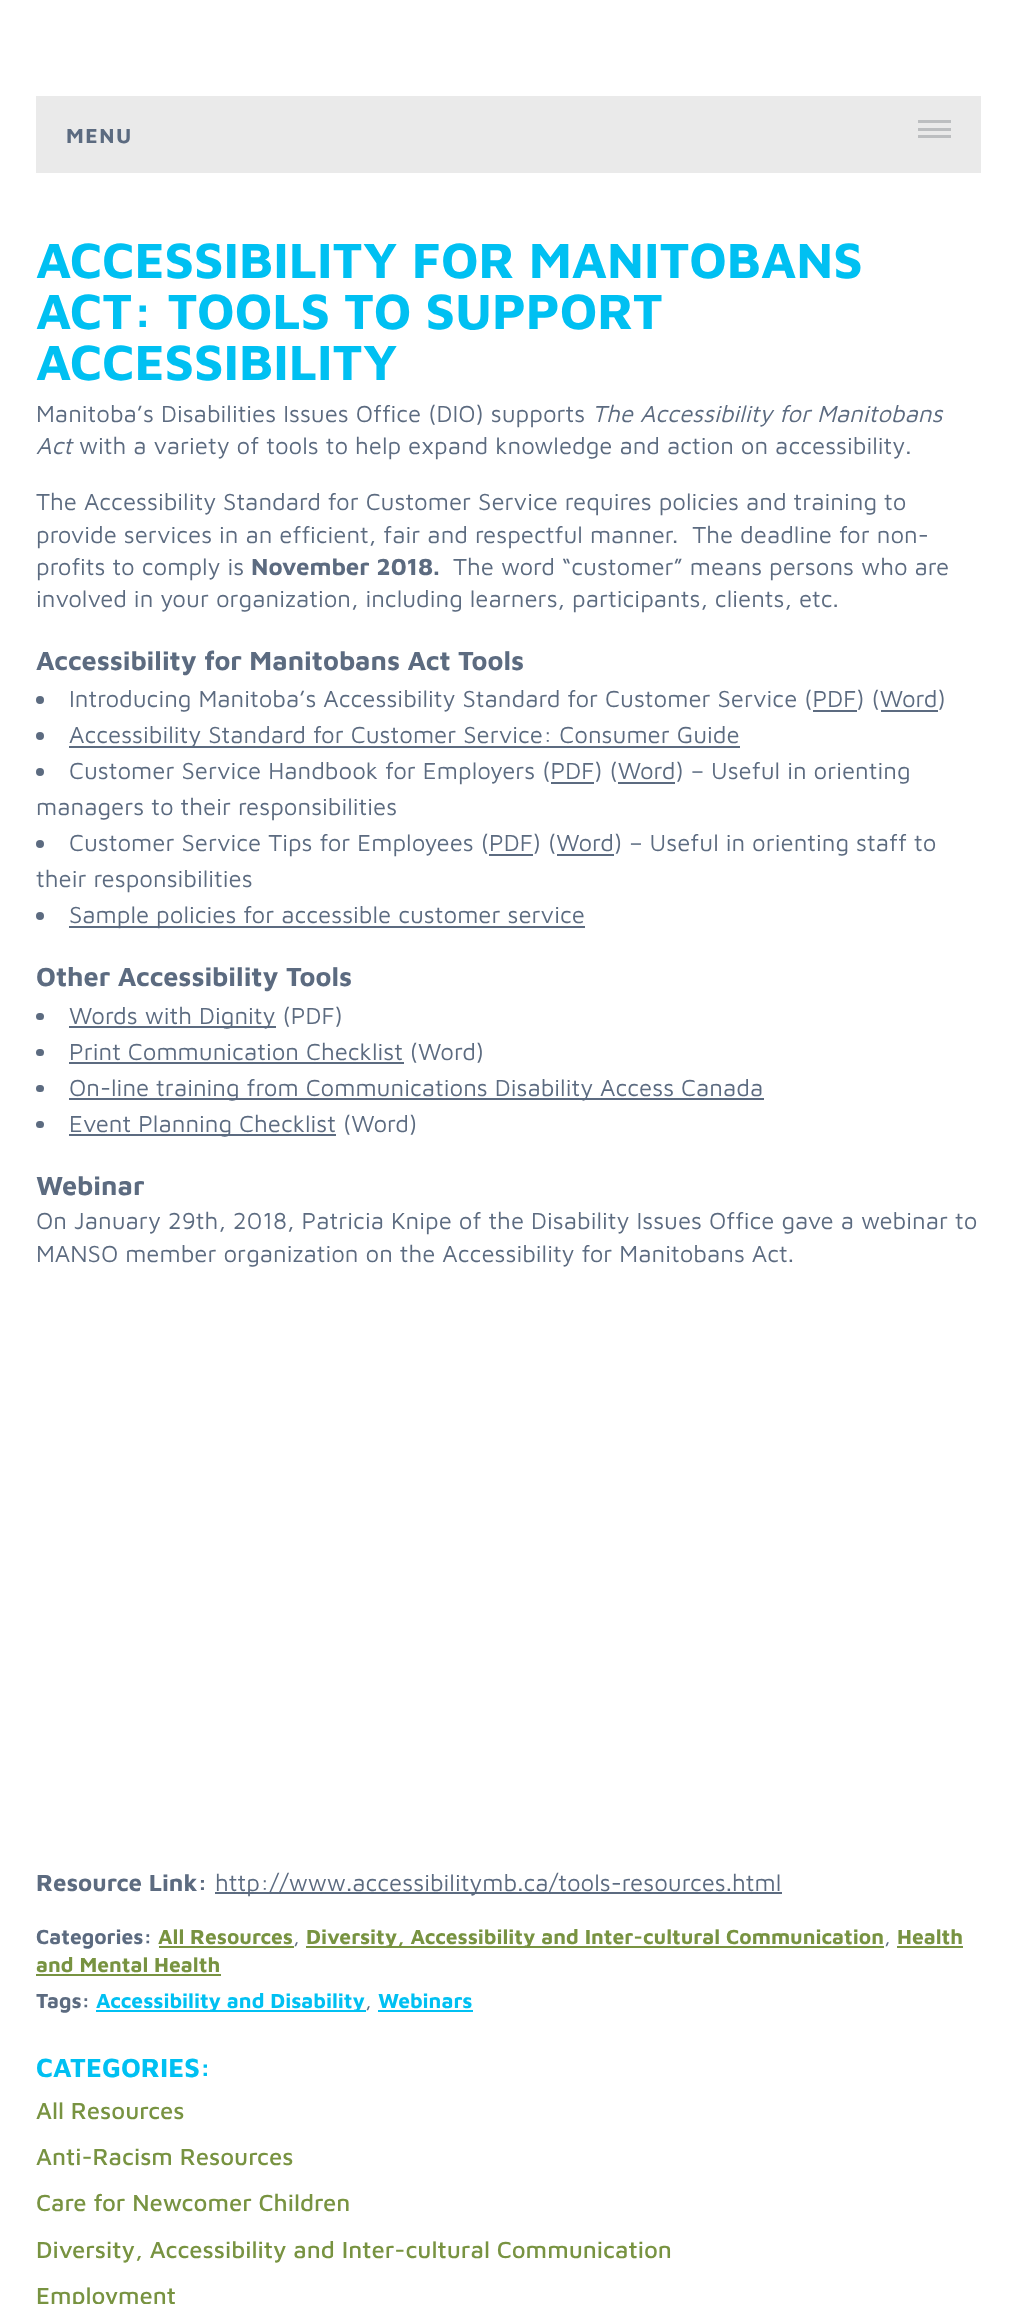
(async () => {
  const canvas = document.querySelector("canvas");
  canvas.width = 1016;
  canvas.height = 2304;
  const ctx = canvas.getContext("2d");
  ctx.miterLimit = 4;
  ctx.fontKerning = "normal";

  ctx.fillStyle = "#ffffff";
  ctx.fillRect(0, 0, 1016, 2304);
  for (const [x, y, w, h, color] of [
    [36, 96, 945, 77, "#eaeaea"],
    [918, 120, 33, 3, "#bcbec0"],
    [918, 128, 33, 3, "#bcbec0"],
    [918, 135, 33, 3, "#bcbec0"],
  ]) {
    ctx.fillStyle = color;
    ctx.fillRect(x, y, w, h);
  }
  ctx.fillStyle = "#5c6b80";
  ctx.beginPath();
  ctx.arc(40, 700, 4, 0, Math.PI * 2);
  ctx.fill();
  ctx.fillRect(813, 710, 44, 2);
  ctx.fillRect(881, 710, 57, 2);
  ctx.beginPath();
  ctx.arc(40, 736, 4, 0, Math.PI * 2);
  ctx.fill();
  ctx.fillRect(69, 746, 671, 2);
  ctx.beginPath();
  ctx.arc(40, 772, 4, 0, Math.PI * 2);
  ctx.fill();
  ctx.fillRect(551, 782, 43, 2);
  ctx.fillRect(618, 782, 57, 2);
  ctx.beginPath();
  ctx.arc(40, 844, 4, 0, Math.PI * 2);
  ctx.fill();
  ctx.fillRect(489, 854, 44, 2);
  ctx.fillRect(557, 854, 57, 2);
  ctx.beginPath();
  ctx.arc(40, 916, 4, 0, Math.PI * 2);
  ctx.fill();
  ctx.fillRect(69, 926, 516, 2);
  ctx.beginPath();
  ctx.roundRect(36, 1013, 8, 7, 3.5);
  ctx.fill();
  ctx.fillRect(69, 1026, 207, 2);
  ctx.beginPath();
  ctx.roundRect(36, 1049, 8, 7, 3.5);
  ctx.fill();
  ctx.fillRect(69, 1062, 335, 2);
  ctx.beginPath();
  ctx.roundRect(36, 1085, 8, 7, 3.5);
  ctx.fill();
  ctx.fillRect(69, 1098, 695, 2);
  ctx.beginPath();
  ctx.roundRect(36, 1121, 8, 7, 3.5);
  ctx.fill();
  for (const [x, y, w, h, color] of [
    [69, 1134, 267, 2, "#5c6b80"],
    [215, 1892, 567, 2, "#5c6b80"],
    [159, 1946, 135, 2, "#789341"],
    [306, 1946, 578, 2, "#789341"],
    [897, 1946, 66, 2, "#789341"],
    [36, 1974, 185, 2, "#789341"],
    [96, 2010, 270, 2, "#00c0f2"],
    [378, 2010, 95, 2, "#00c0f2"],
  ]) {
    ctx.fillStyle = color;
    ctx.fillRect(x, y, w, h);
  }
  ctx.letterSpacing = "1.5px";
  ctx.font = "bold 21px Maven Pro";
  ctx.fillStyle = "#5c6b80";
  ctx.fillText("MENU", 66, 143);
  ctx.letterSpacing = "0px";
  ctx.font = "bold 51px Maven Pro";
  ctx.fillStyle = "#00c0f2";
  for (const [text, x, y] of [
    ["ACCESSIBILITY FOR MANITOBANS", 36, 278],
    ["ACT: TOOLS TO SUPPORT", 36, 329],
    ["ACCESSIBILITY", 36, 380],
  ]) {
    ctx.fillText(text, x, y);
  }
  ctx.font = "24px Maven Pro";
  ctx.fillStyle = "#5c6b80";
  ctx.fillText("Manitoba’s Disabilities Issues Office (DIO) supports", 36, 422);
  ctx.font = "italic 24px Maven Pro";
  ctx.fillText("The Accessibility for Manitobans", 592, 422);
  ctx.fillText("Act", 36, 454);
  ctx.font = "24px Maven Pro";
  for (const [text, x, y] of [
    ["with a variety of tools to help expand knowledge and action on accessibility.", 79, 454],
    ["The Accessibility Standard for Customer Service requires policies and training to", 36, 510],
    ["provide services in an efficient, fair and respectful manner.  The deadline for non-", 36, 543],
    ["profits to comply is", 36, 575],
  ]) {
    ctx.fillText(text, x, y);
  }
  ctx.font = "bold 24px Maven Pro";
  ctx.fillText("November 2018.", 251, 575);
  ctx.font = "24px Maven Pro";
  ctx.fillText("The word “customer” means persons who are", 453, 575);
  ctx.fillText("involved in your organization, including learners, participants, clients, etc.", 36, 607);
  ctx.font = "bold 27px Maven Pro";
  ctx.fillText("Accessibility for Manitobans Act Tools", 36, 670);
  ctx.font = "24px Maven Pro";
  for (const [text, x, y] of [
    ["Introducing Manitoba’s Accessibility Standard for Customer Service (PDF) (Word)", 69, 707],
    ["Accessibility Standard for Customer Service: Consumer Guide", 69, 743],
    ["Customer Service Handbook for Employers (PDF) (Word) – Useful in orienting", 69, 779],
    ["managers to their responsibilities", 36, 815],
    ["Customer Service Tips for Employees (PDF) (Word) – Useful in orienting staff to", 69, 851],
    ["their responsibilities", 36, 887],
    ["Sample policies for accessible customer service", 69, 923],
  ]) {
    ctx.fillText(text, x, y);
  }
  ctx.font = "bold 27px Maven Pro";
  ctx.fillText("Other Accessibility Tools", 36, 986);
  ctx.font = "24px Maven Pro";
  for (const [text, x, y] of [
    ["Words with Dignity (PDF)", 69, 1024],
    ["Print Communication Checklist (Word)", 69, 1060],
    ["On-line training from Communications Disability Access Canada", 69, 1096],
    ["Event Planning Checklist (Word)", 69, 1132],
  ]) {
    ctx.fillText(text, x, y);
  }
  ctx.font = "bold 27px Maven Pro";
  ctx.fillText("Webinar", 36, 1195);
  ctx.font = "24px Maven Pro";
  ctx.fillText("On January 29th, 2018, Patricia Knipe of the Disability Issues Office gave a webinar to", 36, 1229);
  ctx.fillText("MANSO member organization on the Accessibility for Manitobans Act.", 36, 1262);
  ctx.font = "bold 24px Maven Pro";
  ctx.fillText("Resource Link:", 36, 1891);
  ctx.font = "24px Maven Pro";
  ctx.fillText("http://www.accessibilitymb.ca/tools-resources.html", 215, 1891);
  ctx.font = "bold 21px Maven Pro";
  ctx.fillText("Categories:", 36, 1944);
  ctx.fillStyle = "#789341";
  ctx.fillText("All Resources", 158, 1944);
  ctx.font = "21px Maven Pro";
  ctx.fillStyle = "#5c6b80";
  ctx.fillText(",", 293, 1944);
  ctx.font = "bold 21px Maven Pro";
  ctx.fillStyle = "#789341";
  ctx.fillText("Diversity, Accessibility and Inter-cultural Communication", 306, 1944);
  ctx.font = "21px Maven Pro";
  ctx.fillStyle = "#5c6b80";
  ctx.fillText(",", 884, 1944);
  ctx.font = "bold 21px Maven Pro";
  ctx.fillStyle = "#789341";
  ctx.fillText("Health", 897, 1944);
  ctx.fillText("and Mental Health", 36, 1972);
  ctx.fillStyle = "#5c6b80";
  ctx.fillText("Tags:", 36, 2008);
  ctx.fillStyle = "#00c0f2";
  ctx.fillText("Accessibility and Disability", 96, 2008);
  ctx.font = "21px Maven Pro";
  ctx.fillStyle = "#5c6b80";
  ctx.fillText(",", 365, 2008);
  ctx.font = "bold 21px Maven Pro";
  ctx.fillStyle = "#00c0f2";
  ctx.fillText("Webinars", 378, 2008);
  ctx.font = "bold 27px Maven Pro";
  ctx.fillText("CATEGORIES:", 36, 2077);
  ctx.font = "500 24px Maven Pro";
  ctx.fillStyle = "#789341";
  for (const [text, x, y] of [
    ["All Resources", 36, 2119],
    ["Anti-Racism Resources", 36, 2165],
    ["Care for Newcomer Children", 36, 2211],
    ["Diversity, Accessibility and Inter-cultural Communication", 36, 2258],
    ["Employment", 36, 2304],
  ]) {
    ctx.fillText(text, x, y);
  }
})();
